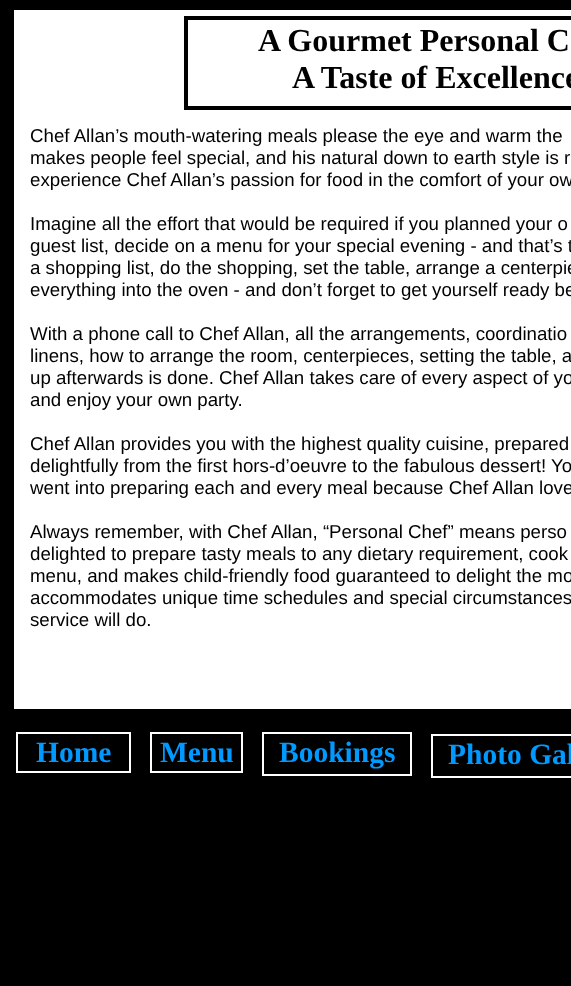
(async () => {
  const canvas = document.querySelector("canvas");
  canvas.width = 571;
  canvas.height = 986;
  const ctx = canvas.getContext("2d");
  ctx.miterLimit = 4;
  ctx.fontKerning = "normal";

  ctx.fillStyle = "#000000";
  ctx.fillRect(0, 0, 571, 986);
  ctx.fillStyle = "#ffffff";
  ctx.fillRect(14, 10, 557, 699);
  ctx.strokeStyle = "#000000";
  ctx.lineWidth = 4;
  ctx.strokeRect(186, 18, 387, 90);
  ctx.strokeStyle = "#ffffff";
  ctx.lineWidth = 2;
  ctx.strokeRect(17, 733, 113, 39);
  ctx.strokeRect(151, 733, 91, 39);
  ctx.strokeRect(263, 733, 148, 42);
  ctx.strokeRect(432, 735, 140, 42);
  ctx.font = "bold 32px Liberation Serif";
  ctx.fillStyle = "#000000";
  ctx.fillText("A Gourmet Personal C", 258, 51);
  ctx.fillText("A Taste of Excellence", 292, 88);
  ctx.font = "18.7px Liberation Sans";
  for (const [text, x, y] of [
    ["Chef Allan’s mouth-watering meals please the eye and warm the", 30, 142],
    ["makes people feel special, and his natural down to earth style is r", 30, 164],
    ["experience Chef Allan’s passion for food in the comfort of your ow", 30, 186],
    ["Imagine all the effort that would be required if you planned your o", 30, 230],
    ["guest list, decide on a menu for your special evening - and that’s t", 30, 252],
    ["a shopping list, do the shopping, set the table, arrange a centerpie", 30, 274],
    ["everything into the oven - and don’t forget to get yourself ready be", 30, 296],
    ["With a phone call to Chef Allan, all the arrangements, coordinatio", 30, 340],
    ["linens, how to arrange the room, centerpieces, setting the table, a", 30, 362],
    ["up afterwards is done. Chef Allan takes care of every aspect of yo", 30, 384],
    ["and enjoy your own party.", 30, 406],
    ["Chef Allan provides you with the highest quality cuisine, prepared", 30, 450],
    ["delightfully from the first hors-d’oeuvre to the fabulous dessert! Yo", 30, 472],
    ["went into preparing each and every meal because Chef Allan love", 30, 494],
    ["Always remember, with Chef Allan, “Personal Chef” means perso", 30, 538],
    ["delighted to prepare tasty meals to any dietary requirement, cook", 30, 560],
    ["menu, and makes child-friendly food guaranteed to delight the mo", 30, 582],
    ["accommodates unique time schedules and special circumstances", 30, 604],
    ["service will do.", 30, 626],
  ]) {
    ctx.fillText(text, x, y);
  }
  ctx.font = "bold 29.5px Liberation Serif";
  ctx.fillStyle = "#0099ff";
  for (const [text, x, y] of [
    ["Home", 36, 762],
    ["Menu", 160, 762],
    ["Bookings", 279, 762],
    ["Photo Gal", 448, 764],
  ]) {
    ctx.fillText(text, x, y);
  }
})();
